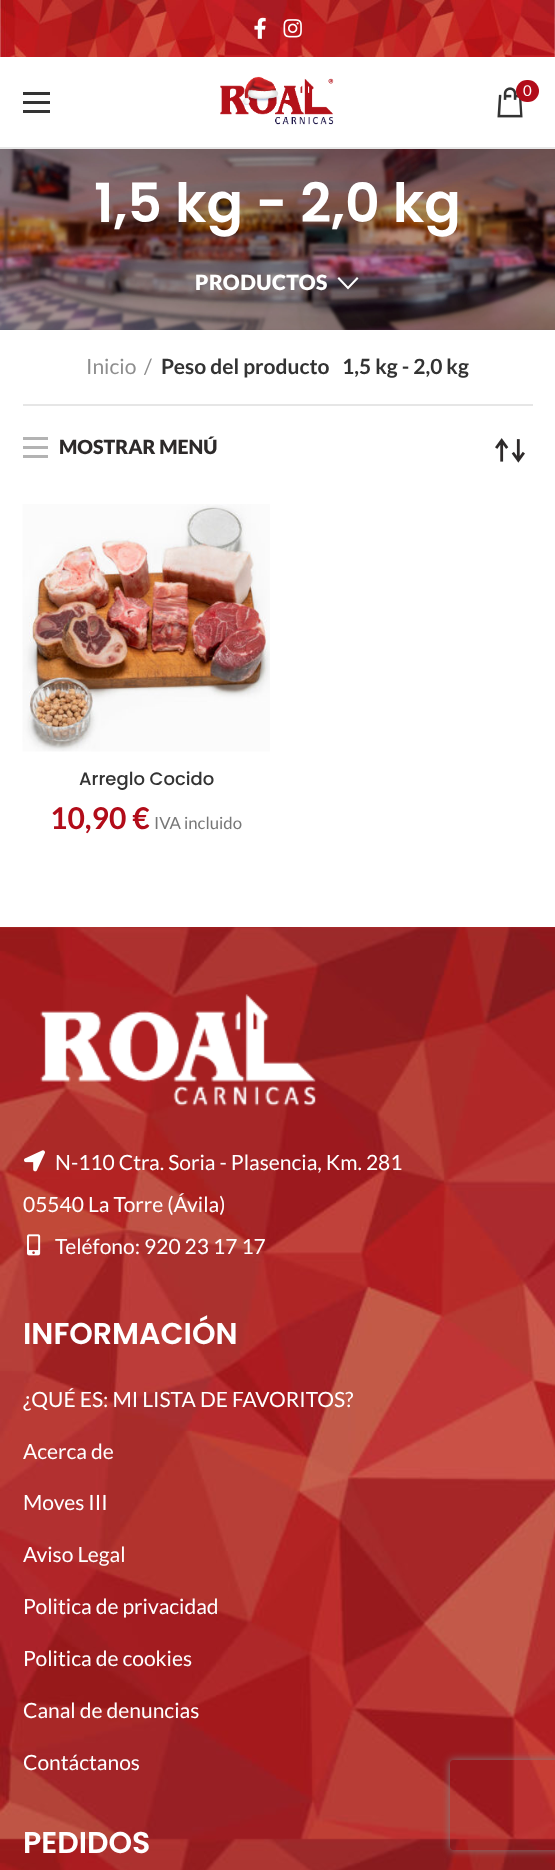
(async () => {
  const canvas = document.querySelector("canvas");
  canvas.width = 555;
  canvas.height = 1870;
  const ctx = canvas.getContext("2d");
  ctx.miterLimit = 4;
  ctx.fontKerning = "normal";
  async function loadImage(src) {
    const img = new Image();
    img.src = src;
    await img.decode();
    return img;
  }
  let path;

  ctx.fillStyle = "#ffffff";
  ctx.fillRect(0, 0, 555, 1870);
  ctx.drawImage(await loadImage("img/1.png"), 0, 0, 555, 57);
  ctx.drawImage(await loadImage("img/2.png"), 254, 17, 12, 22);
  ctx.drawImage(await loadImage("img/3.png"), 283, 19, 19, 19);
  for (const [x, y, w, h, color] of [
    [0, 147, 555, 2, "#e8e8e8"],
    [23, 101, 27, 3, "#333333"],
    [23, 92, 27, 3, "#333333"],
    [23, 110, 27, 3, "#333333"],
  ]) {
    ctx.fillStyle = color;
    ctx.fillRect(x, y, w, h);
  }
  ctx.drawImage(await loadImage("img/4.png"), 220, 76, 114, 49);
  ctx.drawImage(await loadImage("img/5.png"), 497, 87, 26, 31);
  ctx.fillStyle = "#b20c19";
  ctx.beginPath();
  ctx.roundRect(516, 80, 23, 22, 11);
  ctx.fill();
  ctx.drawImage(await loadImage("img/6.png"), 0, 149, 555, 181);
  ctx.fillStyle = "#ffffff";
  path = new Path2D("M357 277L358.5 278.5L348 289.5L337.5 278.5L339 277L348 286.5Z");
  ctx.fill(path);
  for (const [x, y, w, h, color] of [
    [23, 404, 510, 2, "#e6e6e6"],
    [23, 446, 25, 3, "#b3b3b3"],
    [23, 437, 25, 3, "#b3b3b3"],
    [23, 455, 25, 3, "#b3b3b3"],
  ]) {
    ctx.fillStyle = color;
    ctx.fillRect(x, y, w, h);
  }
  ctx.drawImage(await loadImage("img/7.png"), 495, 438, 30, 25);
  ctx.drawImage(await loadImage("img/8.png"), 22, 504, 248, 248);
  ctx.drawImage(await loadImage("img/9.png"), 0, 927, 555, 943);
  ctx.drawImage(await loadImage("img/10.png"), 40, 994, 276, 112);
  ctx.drawImage(await loadImage("img/11.png"), 24, 1150, 21, 22);
  ctx.drawImage(await loadImage("img/12.png"), 27, 1234, 14, 22);
  ctx.save();
  path = new Path2D("M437 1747H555V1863H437ZM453 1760H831C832.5 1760 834 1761.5 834 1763V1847C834 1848.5 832.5 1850 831 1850H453C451.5 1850 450 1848.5 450 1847V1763C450 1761.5 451.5 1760 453 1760Z");
  ctx.clip(path, "evenodd");
  ctx.fillStyle = "#808080";
  ctx.filter = "blur(4px)";
  ctx.beginPath();
  ctx.roundRect(450, 1760, 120, 90, 3);
  ctx.fill();
  ctx.filter = "none";
  ctx.restore();
  ctx.font = "15px Lato";
  ctx.fillStyle = "#ffffff";
  ctx.fillText("0", 523, 96);
  ctx.font = "600 54px Poppins";
  ctx.fillText("1,5 kg - 2,0 kg", 94, 222);
  ctx.letterSpacing = "0.5px";
  ctx.font = "900 21px Lato";
  ctx.fillText("PRODUCTOS", 195, 290);
  ctx.letterSpacing = "0px";
  ctx.font = "21px Lato";
  ctx.fillStyle = "#8e8e8e";
  ctx.fillText("Inicio", 86, 374);
  ctx.fillText("/", 144, 374);
  ctx.font = "bold 21px Lato";
  ctx.fillStyle = "#333333";
  ctx.fillText("Peso del producto", 161, 374);
  ctx.fillText("1,5 kg - 2,0 kg", 342, 374);
  ctx.font = "900 19.5px Lato";
  ctx.fillStyle = "#2d2a2a";
  ctx.fillText("MOSTRAR MENÚ", 59, 454);
  ctx.font = "500 18px Poppins";
  ctx.fillStyle = "#333333";
  ctx.fillText("Arreglo Cocido", 79, 785);
  ctx.font = "bold 30px Lato";
  ctx.fillStyle = "#b20c19";
  ctx.fillText("10,90 €", 50, 829);
  ctx.font = "16.75px Lato";
  ctx.fillStyle = "#777777";
  ctx.fillText("IVA incluido", 154, 829);
  ctx.font = "21px Lato";
  ctx.fillStyle = "#ffffff";
  for (const [text, x, y] of [
    ["N-110 Ctra. Soria - Plasencia, Km. 281", 55, 1170],
    ["05540 La Torre (Ávila)", 23, 1212],
    ["Teléfono: 920 23 17 17", 55, 1254],
  ]) {
    ctx.fillText(text, x, y);
  }
  ctx.font = "600 30px Poppins";
  ctx.fillText("INFORMACIÓN", 23, 1344);
  ctx.font = "21px Lato";
  for (const [text, x, y] of [
    ["¿QUÉ ES: MI LISTA DE FAVORITOS?", 23, 1407],
    ["Acerca de", 23, 1459],
    ["Moves III", 23, 1510],
    ["Aviso Legal", 23, 1562],
    ["Politica de privacidad", 23, 1614],
    ["Politica de cookies", 23, 1666],
    ["Canal de denuncias", 23, 1718],
    ["Contáctanos", 23, 1770],
  ]) {
    ctx.fillText(text, x, y);
  }
  ctx.font = "600 30px Poppins";
  ctx.fillText("PEDIDOS", 23, 1853);
})();
